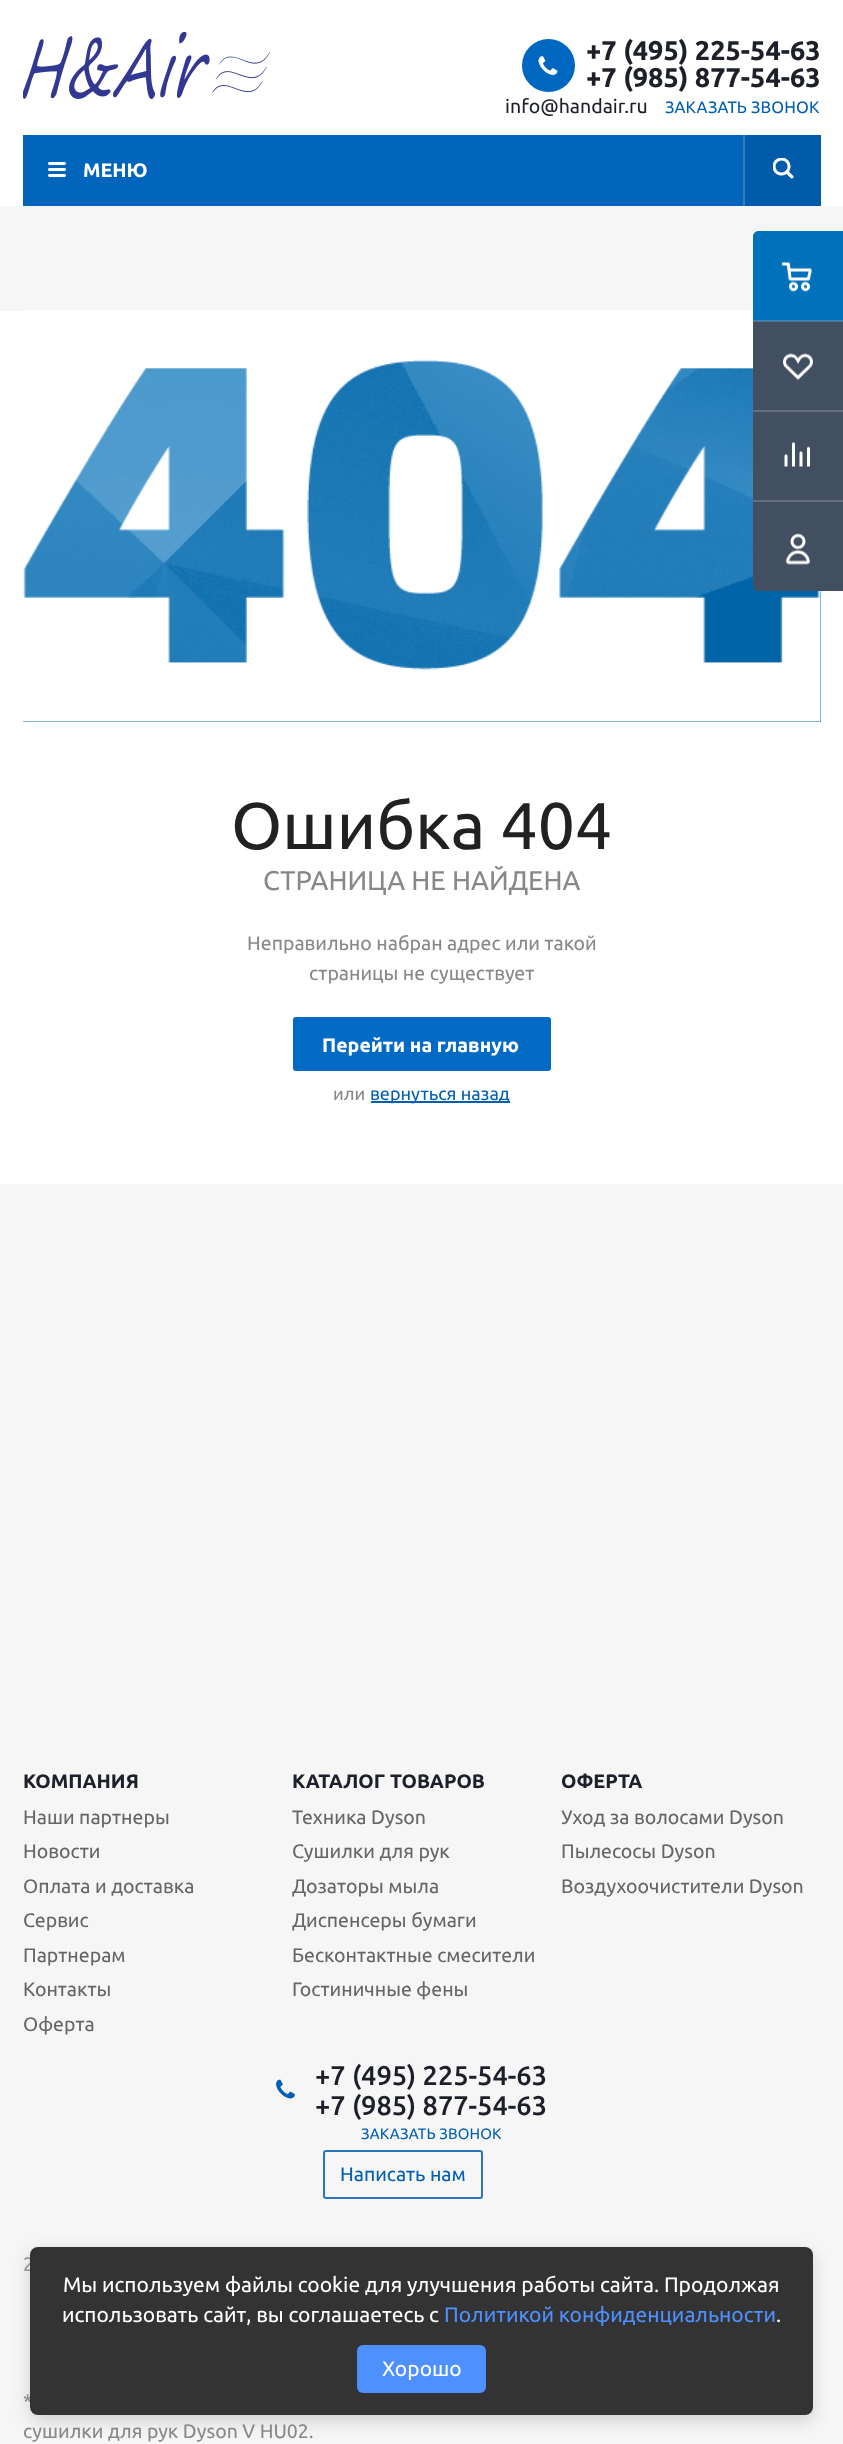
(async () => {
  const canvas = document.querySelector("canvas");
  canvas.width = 843;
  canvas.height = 2444;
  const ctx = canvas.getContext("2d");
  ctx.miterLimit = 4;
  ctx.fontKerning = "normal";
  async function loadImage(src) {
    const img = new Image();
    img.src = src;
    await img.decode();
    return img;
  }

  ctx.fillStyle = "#f6f6f7";
  ctx.fillRect(0, 0, 843, 2444);
  ctx.fillStyle = "#ffffff";
  ctx.fillRect(0, 0, 843, 206);
  ctx.drawImage(await loadImage("img/1.png"), 23, 32, 247, 67);
  ctx.fillStyle = "#0067c0";
  ctx.beginPath();
  ctx.arc(548.5, 65.5, 26.5, 0, Math.PI * 2);
  ctx.fill();
  ctx.drawImage(await loadImage("img/2.png"), 538, 56, 20, 19);
  ctx.fillStyle = "#ffffff";
  ctx.fillRect(0, 311, 843, 873);
  ctx.fillStyle = "#0071bb";
  ctx.fillRect(23, 359, 798, 363);
  ctx.drawImage(await loadImage("img/9.png"), 23, 310, 798, 412);
  ctx.fillStyle = "#424f60";
  ctx.beginPath();
  ctx.roundRect(753, 231, 90, 360, [6, 0, 0, 6]);
  ctx.fill();
  ctx.fillStyle = "#0071bb";
  ctx.beginPath();
  ctx.roundRect(753, 231, 90, 90, [6, 0, 0, 0]);
  ctx.fill();
  ctx.drawImage(await loadImage("img/3.png"), 782, 262, 30, 30);
  ctx.fillStyle = "rgba(231, 237, 242, 0.2)";
  ctx.fillRect(753, 320, 90, 2);
  ctx.drawImage(await loadImage("img/4.png"), 783, 353, 30, 27);
  ctx.fillStyle = "#636f7d";
  ctx.fillRect(753, 410, 90, 2);
  ctx.drawImage(await loadImage("img/5.png"), 784, 442, 26, 25);
  ctx.fillRect(753, 500, 90, 2);
  ctx.drawImage(await loadImage("img/6.png"), 786, 533, 24, 32);
  ctx.fillStyle = "#0065bb";
  ctx.fillRect(23, 135, 720, 71);
  ctx.drawImage(await loadImage("img/7.png"), 48, 162, 18, 15);
  ctx.fillStyle = "#005cab";
  ctx.fillRect(745, 135, 76, 71);
  ctx.fillStyle = "#337dbc";
  ctx.fillRect(743, 135, 2, 71);
  ctx.drawImage(await loadImage("img/8.png"), 773, 158, 21, 21);
  ctx.fillStyle = "#006ac5";
  ctx.beginPath();
  ctx.roundRect(293, 1017, 258, 54, 3);
  ctx.fill();
  ctx.fillStyle = "#005fb1";
  ctx.fillRect(371, 1101, 139, 2);
  ctx.drawImage(await loadImage("img/10.png"), 276, 2079, 19, 20);
  ctx.beginPath();
  ctx.roundRect(324, 2151, 158, 47, 2);
  ctx.strokeStyle = "#2975c0";
  ctx.lineWidth = 2;
  ctx.stroke();
  ctx.fillStyle = "rgba(0, 0, 0, 0.15)";
  ctx.filter = "blur(9px)";
  ctx.beginPath();
  ctx.roundRect(30, 2253, 783, 168, 8);
  ctx.fill();
  ctx.filter = "none";
  ctx.font = "bold 27px Ubuntu";
  ctx.fillStyle = "#1d2029";
  ctx.fillText("+7 (495) 225-54-63", 586, 60);
  ctx.fillText("+7 (985) 877-54-63", 586, 87);
  ctx.font = "19.5px Ubuntu";
  ctx.fillText("info@handair.ru", 505, 113);
  ctx.letterSpacing = "0.1px";
  ctx.font = "16.5px Ubuntu";
  ctx.fillStyle = "#005fb1";
  ctx.fillText("ЗАКАЗАТЬ ЗВОНОК", 665, 113);
  ctx.letterSpacing = "0px";
  ctx.font = "bold 19.5px Ubuntu";
  ctx.fillStyle = "#ffffff";
  ctx.fillText("МЕНЮ", 83, 177);
  ctx.font = "66px Ubuntu";
  ctx.fillStyle = "#212121";
  ctx.fillText("Ошибка 404", 231, 849);
  ctx.font = "27px Ubuntu";
  ctx.fillStyle = "#888888";
  ctx.fillText("СТРАНИЦА НЕ НАЙДЕНА", 263, 890);
  ctx.font = "19.5px Ubuntu";
  ctx.fillText("Неправильно набран адрес или такой", 247, 950);
  ctx.fillText("страницы не существует", 309, 980);
  ctx.font = "bold 19.5px Ubuntu";
  ctx.fillStyle = "#ffffff";
  ctx.fillText("Перейти на главную", 322, 1052);
  ctx.font = "18px Ubuntu";
  ctx.fillStyle = "#888888";
  ctx.fillText("или", 333, 1100);
  ctx.fillStyle = "#005fb1";
  ctx.fillText("вернуться назад", 370, 1100);
  ctx.font = "bold 19.5px Ubuntu";
  ctx.fillStyle = "#1d2029";
  for (const [text, x, y] of [
    ["КОМПАНИЯ", 23, 1788],
    ["КАТАЛОГ ТОВАРОВ", 292, 1788],
    ["ОФЕРТА", 561, 1788],
  ]) {
    ctx.fillText(text, x, y);
  }
  ctx.font = "19.5px Ubuntu";
  ctx.fillStyle = "#666666";
  for (const [text, x, y] of [
    ["Наши партнеры", 23, 1824],
    ["Новости", 23, 1858],
    ["Оплата и доставка", 23, 1893],
    ["Сервис", 23, 1927],
    ["Партнерам", 23, 1962],
    ["Контакты", 23, 1996],
    ["Оферта", 23, 2031],
    ["Техника Dyson", 292, 1824],
    ["Сушилки для рук", 292, 1858],
    ["Дозаторы мыла", 292, 1893],
    ["Диспенсеры бумаги", 292, 1927],
    ["Бесконтактные смесители", 292, 1962],
    ["Гостиничные фены", 292, 1996],
    ["Уход за волосами Dyson", 561, 1824],
    ["Пылесосы Dyson", 561, 1858],
    ["Воздухоочистители Dyson", 561, 1893],
  ]) {
    ctx.fillText(text, x, y);
  }
  ctx.font = "500 27px Ubuntu";
  ctx.fillStyle = "#1d2029";
  ctx.fillText("+7 (495) 225-54-63", 315, 2085);
  ctx.fillText("+7 (985) 877-54-63", 315, 2115);
  ctx.letterSpacing = "0.1px";
  ctx.font = "15px Ubuntu";
  ctx.fillStyle = "#005fb1";
  ctx.fillText("ЗАКАЗАТЬ ЗВОНОК", 361, 2139);
  ctx.letterSpacing = "0px";
  ctx.font = "19.5px Ubuntu";
  ctx.fillText("Написать нам", 340, 2181);
  ctx.fillStyle = "#959595";
  ctx.fillText("2", 23, 2271);
  ctx.fillStyle = "#888888";
  ctx.fillText("*", 23, 2408);
  ctx.fillText("сушилки для рук Dyson V HU02.", 23, 2438);
  ctx.fillStyle = "#333333";
  ctx.beginPath();
  ctx.roundRect(30, 2247, 783, 168, 8);
  ctx.fill();
  ctx.font = "21px Ubuntu";
  ctx.fillStyle = "#ffffff";
  ctx.fillText("Мы используем файлы cookie для улучшения работы сайта. Продолжая", 63, 2292);
  ctx.fillText("использовать сайт, вы соглашаетесь с", 62, 2322);
  ctx.fillStyle = "#4d90fe";
  ctx.fillText("Политикой конфиденциальности", 444, 2322);
  ctx.fillStyle = "#ffffff";
  ctx.fillText(".", 776, 2322);
  ctx.fillStyle = "#4d90fe";
  ctx.beginPath();
  ctx.roundRect(357, 2345, 129, 48, 6);
  ctx.fill();
  ctx.fillStyle = "#ffffff";
  ctx.fillText("Хорошо", 382, 2376);
})();
